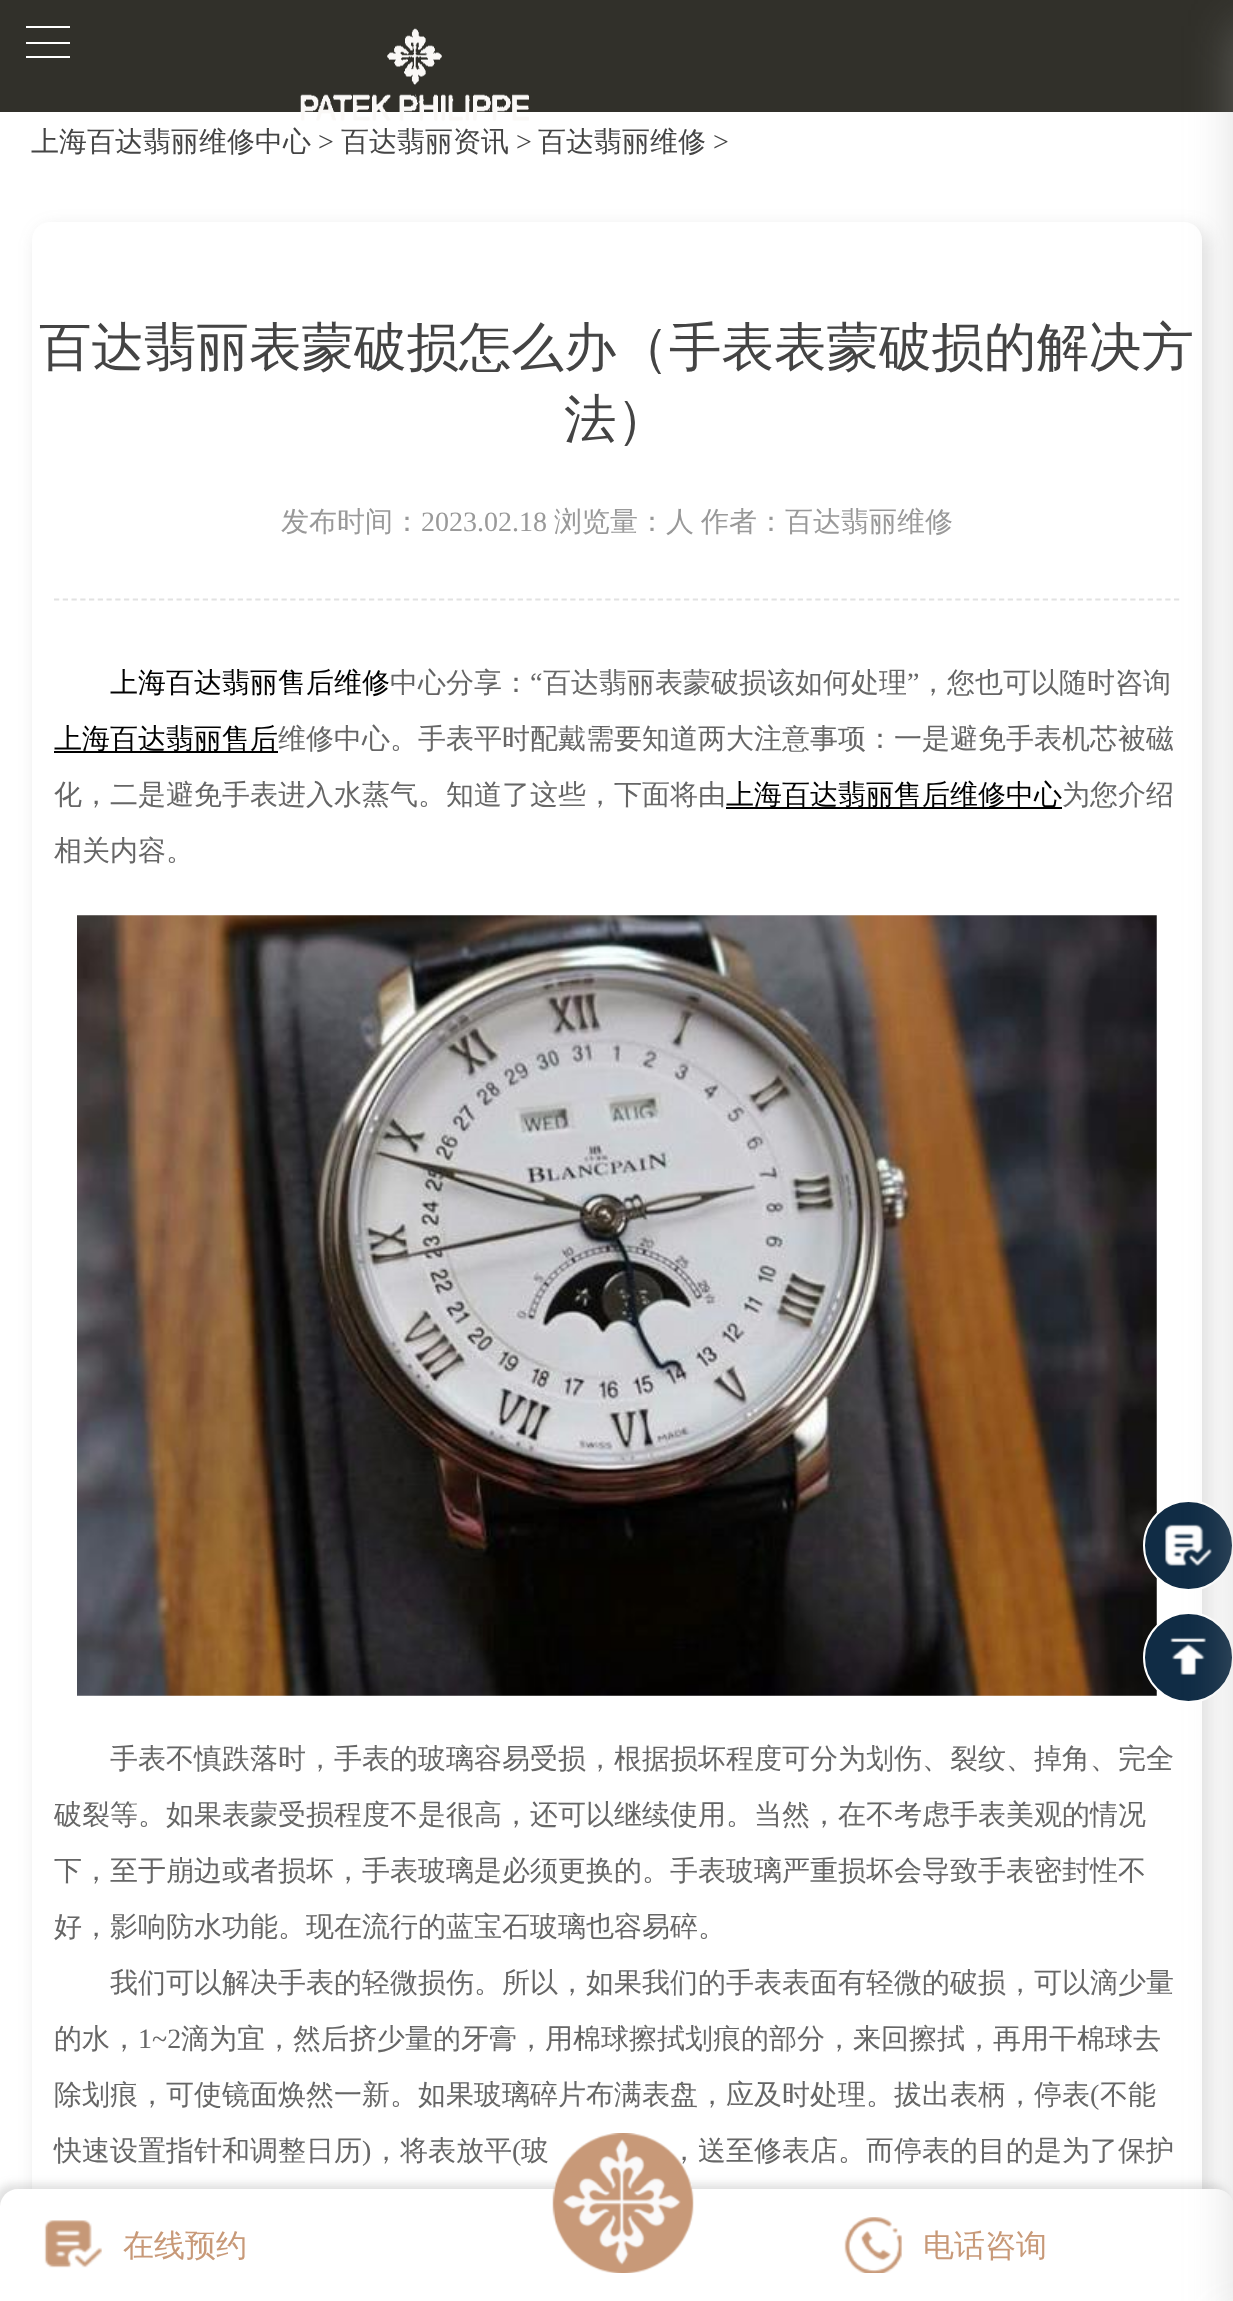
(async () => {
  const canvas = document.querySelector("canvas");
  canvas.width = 1233;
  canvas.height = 2301;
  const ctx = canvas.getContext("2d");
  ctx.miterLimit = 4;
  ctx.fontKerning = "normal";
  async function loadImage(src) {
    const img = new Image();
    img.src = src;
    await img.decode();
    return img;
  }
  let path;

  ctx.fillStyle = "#ffffff";
  ctx.fillRect(0, 0, 1233, 2301);
  for (const [x, y, w, h, color] of [
    [0, 0, 1233, 112, "#31302a"],
    [26, 42, 44, 2, "#ffffff"],
    [26, 26, 44, 2, "#ffffff"],
    [26, 56, 44, 2, "#ffffff"],
  ]) {
    ctx.fillStyle = color;
    ctx.fillRect(x, y, w, h);
  }
  ctx.drawImage(await loadImage("img/1.png"), 300, 28, 229, 93);
  ctx.save();
  path = new Path2D("M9 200H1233V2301H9ZM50 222H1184C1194 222 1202 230 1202 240V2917C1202 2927 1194 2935 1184 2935H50C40 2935 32 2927 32 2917V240C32 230 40 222 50 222Z");
  ctx.clip(path, "evenodd");
  ctx.fillStyle = "rgba(102, 102, 102, 0.2)";
  ctx.filter = "blur(9px)";
  ctx.beginPath();
  ctx.roundRect(37, 228, 1171, 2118, 18);
  ctx.fill();
  ctx.filter = "none";
  ctx.restore();
  path = new Path2D("M54 599.5H1179.5");
  ctx.strokeStyle = "#e2e2e2";
  ctx.lineWidth = 1.8;
  ctx.setLineDash([5.25, 3.5]);
  ctx.stroke(path);
  ctx.drawImage(await loadImage("img/2.png"), 77, 915, 1080, 781);
  ctx.fillStyle = "#102c45";
  ctx.beginPath();
  ctx.arc(1188.5, 1545.5, 44.5, 0, Math.PI * 2);
  ctx.fill();
  ctx.strokeStyle = "#ffffff";
  ctx.lineWidth = 2;
  ctx.setLineDash([]);
  ctx.stroke();
  ctx.drawImage(await loadImage("img/3.png"), 1165, 1524, 47, 42);
  ctx.beginPath();
  ctx.arc(1188.5, 1657.5, 44.5, 0, Math.PI * 2);
  ctx.fill();
  ctx.stroke();
  ctx.drawImage(await loadImage("img/4.png"), 1170, 1637, 36, 38);
  ctx.fillStyle = "rgba(102, 102, 102, 0.2)";
  ctx.filter = "blur(4.5px)";
  ctx.beginPath();
  ctx.roundRect(-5, 2184, 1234, 112, 18);
  ctx.fill();
  ctx.filter = "none";
  ctx.fillStyle = "#ffffff";
  path = new Path2D("M18 2189H1216C1226 2189 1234 2197 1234 2207V2301H0V2207C0 2197 8 2189 18 2189Z");
  ctx.fill(path);
  ctx.fillStyle = "rgba(167, 165, 165, 0.38)";
  ctx.filter = "blur(23.5px)";
  ctx.beginPath();
  ctx.rect(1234, 26, 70, 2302);
  ctx.fill();
  ctx.filter = "none";
  ctx.fillStyle = "#000000";
  ctx.fillRect(54, 751, 224, 2);
  ctx.fillRect(726, 807, 336, 2);
  ctx.drawImage(await loadImage("img/5.png"), 44, 2220, 58, 48);
  ctx.drawImage(await loadImage("img/7.png"), 844, 2217, 58, 56);
  ctx.font = "500 28px WenQuanYi Zen Hei";
  ctx.fillStyle = "#444444";
  ctx.fillText("上海百达翡丽维修中心", 31, 151);
  ctx.font = "28px Liberation Serif";
  ctx.fillText(">", 318, 151);
  ctx.font = "500 28px WenQuanYi Zen Hei";
  ctx.fillText("百达翡丽资讯", 341, 151);
  ctx.font = "28px Liberation Serif";
  ctx.fillText(">", 516, 151);
  ctx.font = "500 28px WenQuanYi Zen Hei";
  ctx.fillText("百达翡丽维修", 538, 151);
  ctx.font = "28px Liberation Serif";
  ctx.fillText(">", 713, 151);
  ctx.font = "500 52.5px WenQuanYi Zen Hei";
  ctx.fillText("百达翡丽表蒙破损怎么办（手表表蒙破损的解决方", 39, 365);
  ctx.fillText("法）", 564, 437);
  ctx.font = "500 28px WenQuanYi Zen Hei";
  ctx.fillStyle = "#999999";
  ctx.fillText("发布时间：", 281, 531);
  ctx.font = "28px Liberation Serif";
  ctx.fillText("2023.02.18", 421, 531);
  ctx.font = "500 28px WenQuanYi Zen Hei";
  ctx.fillText("浏览量：人", 554, 531);
  ctx.fillText("作者：百达翡丽维修", 701, 531);
  ctx.fillStyle = "#000000";
  ctx.fillText("上海百达翡丽售后维修", 110, 692);
  ctx.fillStyle = "#666666";
  ctx.fillText("中心分享：", 390, 692);
  ctx.font = "28px Liberation Serif";
  ctx.fillText("“", 530, 692);
  ctx.font = "500 28px WenQuanYi Zen Hei";
  ctx.fillText("百达翡丽表蒙破损该如何处理", 543, 692);
  ctx.font = "28px Liberation Serif";
  ctx.fillText("”", 907, 692);
  ctx.font = "500 28px WenQuanYi Zen Hei";
  ctx.fillText("，您也可以随时咨询", 919, 692);
  ctx.fillStyle = "#000000";
  ctx.fillText("上海百达翡丽售后", 54, 748);
  ctx.fillStyle = "#666666";
  ctx.fillText("维修中心。手表平时配戴需要知道两大注意事项：一是避免手表机芯被磁", 278, 748);
  ctx.fillText("化，二是避免手表进入水蒸气。知道了这些，下面将由", 54, 804);
  ctx.fillStyle = "#000000";
  ctx.fillText("上海百达翡丽售后维修中心", 726, 804);
  ctx.fillStyle = "#666666";
  for (const [text, x, y] of [
    ["为您介绍", 1062, 804],
    ["相关内容。", 54, 860],
    ["手表不慎跌落时，手表的玻璃容易受损，根据损坏程度可分为划伤、裂纹、掉角、完全", 110, 1768],
    ["破裂等。如果表蒙受损程度不是很高，还可以继续使用。当然，在不考虑手表美观的情况", 54, 1824],
    ["下，至于崩边或者损坏，手表玻璃是必须更换的。手表玻璃严重损坏会导致手表密封性不", 54, 1880],
    ["好，影响防水功能。现在流行的蓝宝石玻璃也容易碎。", 54, 1936],
    ["我们可以解决手表的轻微损伤。所以，如果我们的手表表面有轻微的破损，可以滴少量", 110, 1992],
    ["的水，", 54, 2048],
  ]) {
    ctx.fillText(text, x, y);
  }
  ctx.font = "28px Liberation Serif";
  ctx.fillText("1~2", 138, 2048);
  ctx.font = "500 28px WenQuanYi Zen Hei";
  ctx.fillText("滴为宜，然后挤少量的牙膏，用棉球擦拭划痕的部分，来回擦拭，再用干棉球去", 181, 2048);
  ctx.fillText("除划痕，可使镜面焕然一新。如果玻璃碎片布满表盘，应及时处理。拔出表柄，停表", 54, 2104);
  ctx.font = "28px Liberation Serif";
  ctx.fillText("(", 1090, 2104);
  ctx.font = "500 28px WenQuanYi Zen Hei";
  ctx.fillText("不能", 1100, 2104);
  ctx.fillText("快速设置指针和调整日历", 54, 2160);
  ctx.font = "28px Liberation Serif";
  ctx.fillText(")", 362, 2160);
  ctx.font = "500 28px WenQuanYi Zen Hei";
  ctx.fillText("，将表放平", 372, 2160);
  ctx.font = "28px Liberation Serif";
  ctx.fillText("(", 512, 2160);
  ctx.font = "500 28px WenQuanYi Zen Hei";
  ctx.fillText("玻", 521, 2160);
  ctx.fillText("，送至修表店。而停表的目的是为了保护", 670, 2160);
  ctx.font = "500 31px WenQuanYi Zen Hei";
  ctx.fillStyle = "#c89978";
  ctx.fillText("在线预约", 123, 2256);
  ctx.drawImage(await loadImage("img/6.png"), 552, 2133, 142, 140);
  ctx.fillText("电话咨询", 923, 2256);
})();
